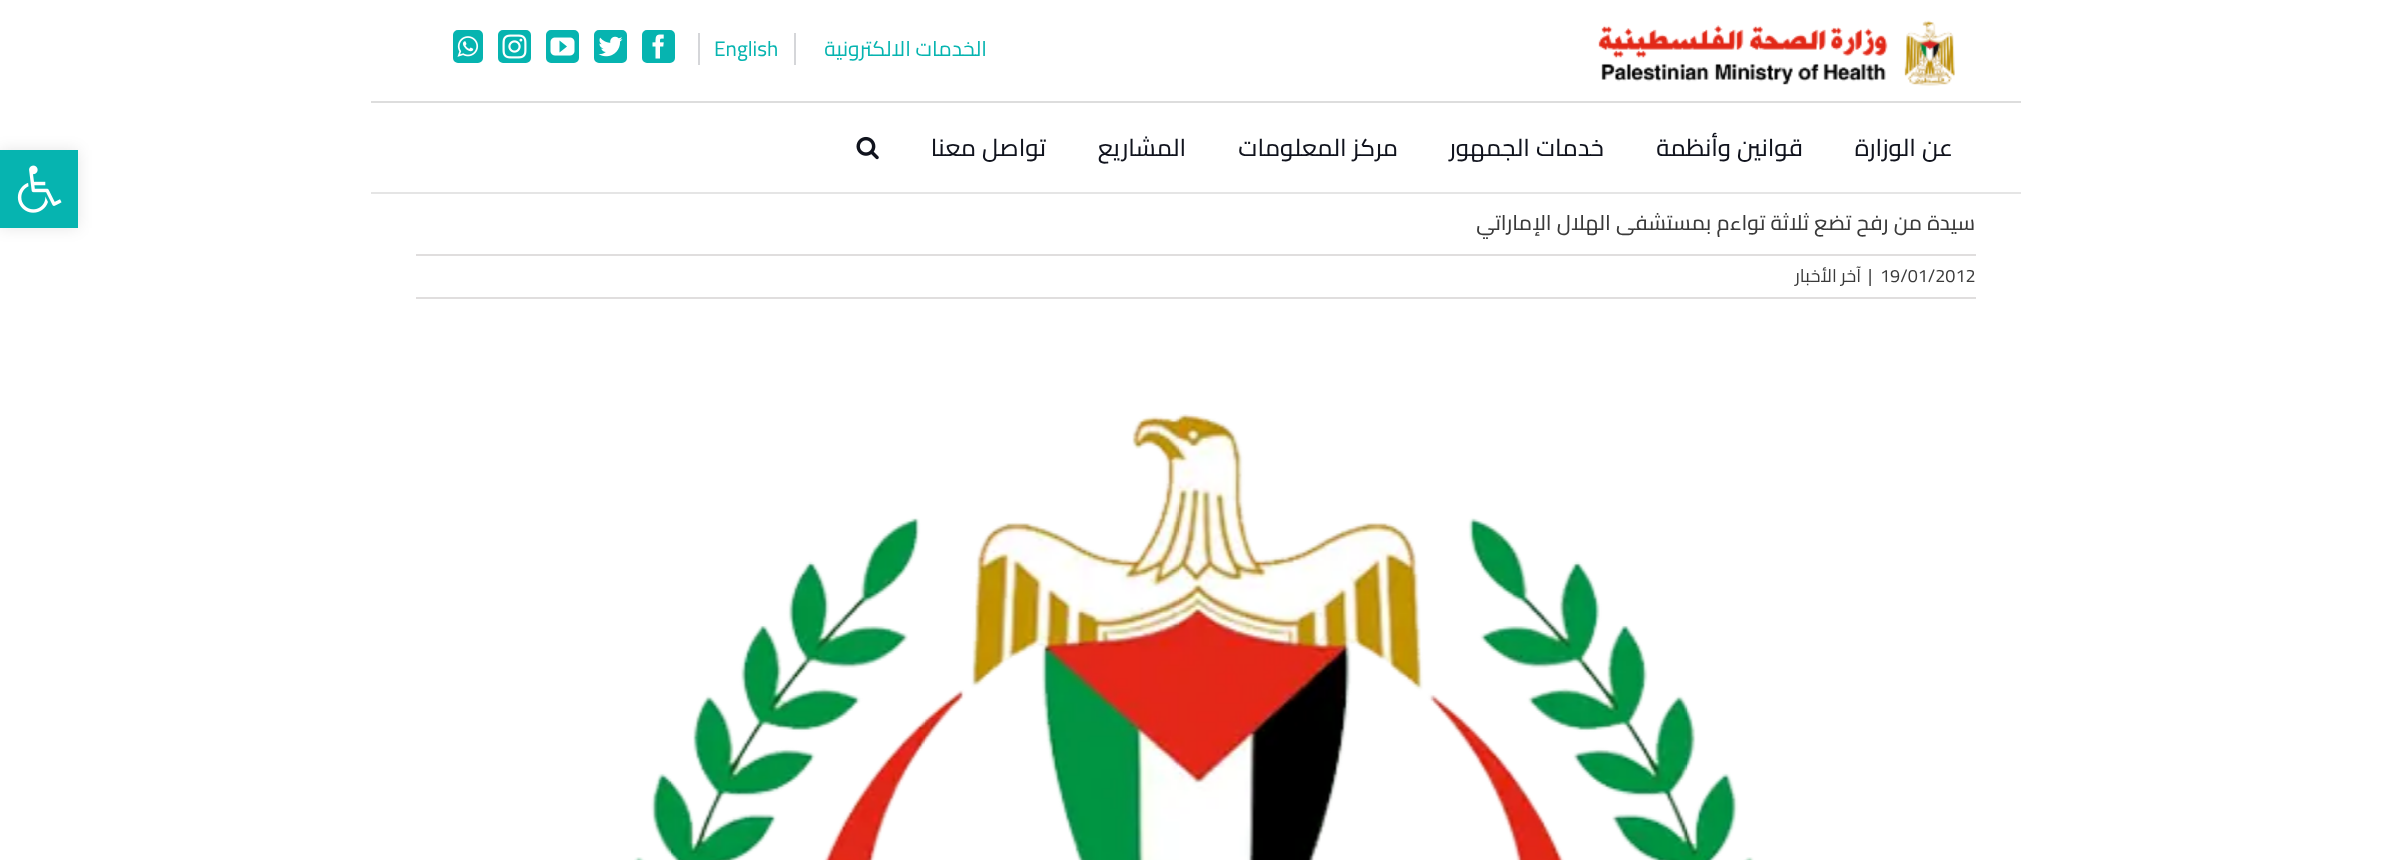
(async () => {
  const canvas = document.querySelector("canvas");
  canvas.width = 2390;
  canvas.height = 860;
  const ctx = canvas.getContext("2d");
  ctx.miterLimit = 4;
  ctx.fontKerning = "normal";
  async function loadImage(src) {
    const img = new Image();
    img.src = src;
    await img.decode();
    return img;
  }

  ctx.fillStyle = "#ffffff";
  ctx.fillRect(0, 0, 2390, 860);
  ctx.fillStyle = "#dddddd";
  ctx.fillRect(371, 101, 1650, 2);
  ctx.drawImage(await loadImage("img/1.png"), 1598, 20, 357, 66);
  ctx.fillStyle = "#d5d6d9";
  ctx.fillRect(794, 33, 2, 32);
  ctx.fillRect(698, 33, 2, 32);
  ctx.fillStyle = "#06b4b0";
  ctx.beginPath();
  ctx.roundRect(643, 31, 31, 31, 4);
  ctx.fill();
  ctx.strokeStyle = "#06b4b0";
  ctx.lineWidth = 2;
  ctx.stroke();
  ctx.drawImage(await loadImage("img/2.png"), 652, 34, 12, 25);
  ctx.beginPath();
  ctx.roundRect(595, 31, 31, 31, 4);
  ctx.fill();
  ctx.stroke();
  ctx.drawImage(await loadImage("img/3.png"), 598, 36, 25, 21);
  ctx.beginPath();
  ctx.roundRect(547, 31, 31, 31, 4);
  ctx.fill();
  ctx.stroke();
  ctx.drawImage(await loadImage("img/4.png"), 550, 37, 25, 19);
  ctx.beginPath();
  ctx.roundRect(499, 31, 31, 31, 4);
  ctx.fill();
  ctx.stroke();
  ctx.drawImage(await loadImage("img/5.png"), 502, 34, 25, 25);
  ctx.beginPath();
  ctx.roundRect(454, 31, 28, 31, 4);
  ctx.fill();
  ctx.stroke();
  ctx.drawImage(await loadImage("img/6.png"), 457, 36, 22, 21);
  ctx.fillStyle = "#e5e5e5";
  ctx.fillRect(371, 192, 1650, 2);
  ctx.drawImage(await loadImage("img/7.png"), 856, 136, 23, 24);
  ctx.fillStyle = "#e0dede";
  ctx.fillRect(416, 254, 1560, 2);
  ctx.fillRect(416, 297, 1560, 2);
  ctx.drawImage(await loadImage("img/8.png"), 634, 414, 1120, 446);
  ctx.fillStyle = "rgba(0, 0, 0, 0.1)";
  ctx.filter = "blur(7.5px)";
  ctx.beginPath();
  ctx.rect(0, 150, 78, 78);
  ctx.fill();
  ctx.filter = "none";
  ctx.fillStyle = "#06b4b0";
  ctx.fillRect(0, 150, 78, 78);
  ctx.drawImage(await loadImage("img/9.png"), 17, 165, 45, 48);
  ctx.direction = "rtl";
  ctx.font = "21px Cairo";
  ctx.fillText("الخدمات الالكترونية", 987, 56);
  ctx.direction = "ltr";
  ctx.fillText("English", 714, 56);
  ctx.direction = "rtl";
  ctx.font = "500 24px Cairo";
  ctx.fillStyle = "#10131d";
  for (const [text, x, y] of [
    ["عن الوزارة", 1953, 156],
    ["قوانين وأنظمة", 1803, 156],
    ["خدمات الجمهور", 1604, 156],
    ["مركز المعلومات", 1398, 156],
    ["المشاريع", 1186, 156],
    ["تواصل معنا", 1046, 156],
  ]) {
    ctx.fillText(text, x, y);
  }
  ctx.font = "500 21px Cairo";
  ctx.fillStyle = "#3a3a3a";
  ctx.fillText("سيدة من رفح تضع ثلاثة تواءم بمستشفى الهلال الإماراتي", 1975, 230);
  ctx.direction = "ltr";
  ctx.font = "18px Cairo";
  ctx.fillText("19/01/2012", 1880, 282);
  ctx.fillText("|", 1868, 282);
  ctx.direction = "rtl";
  ctx.fillText("آخر الأخبار", 1861, 282);
})();
